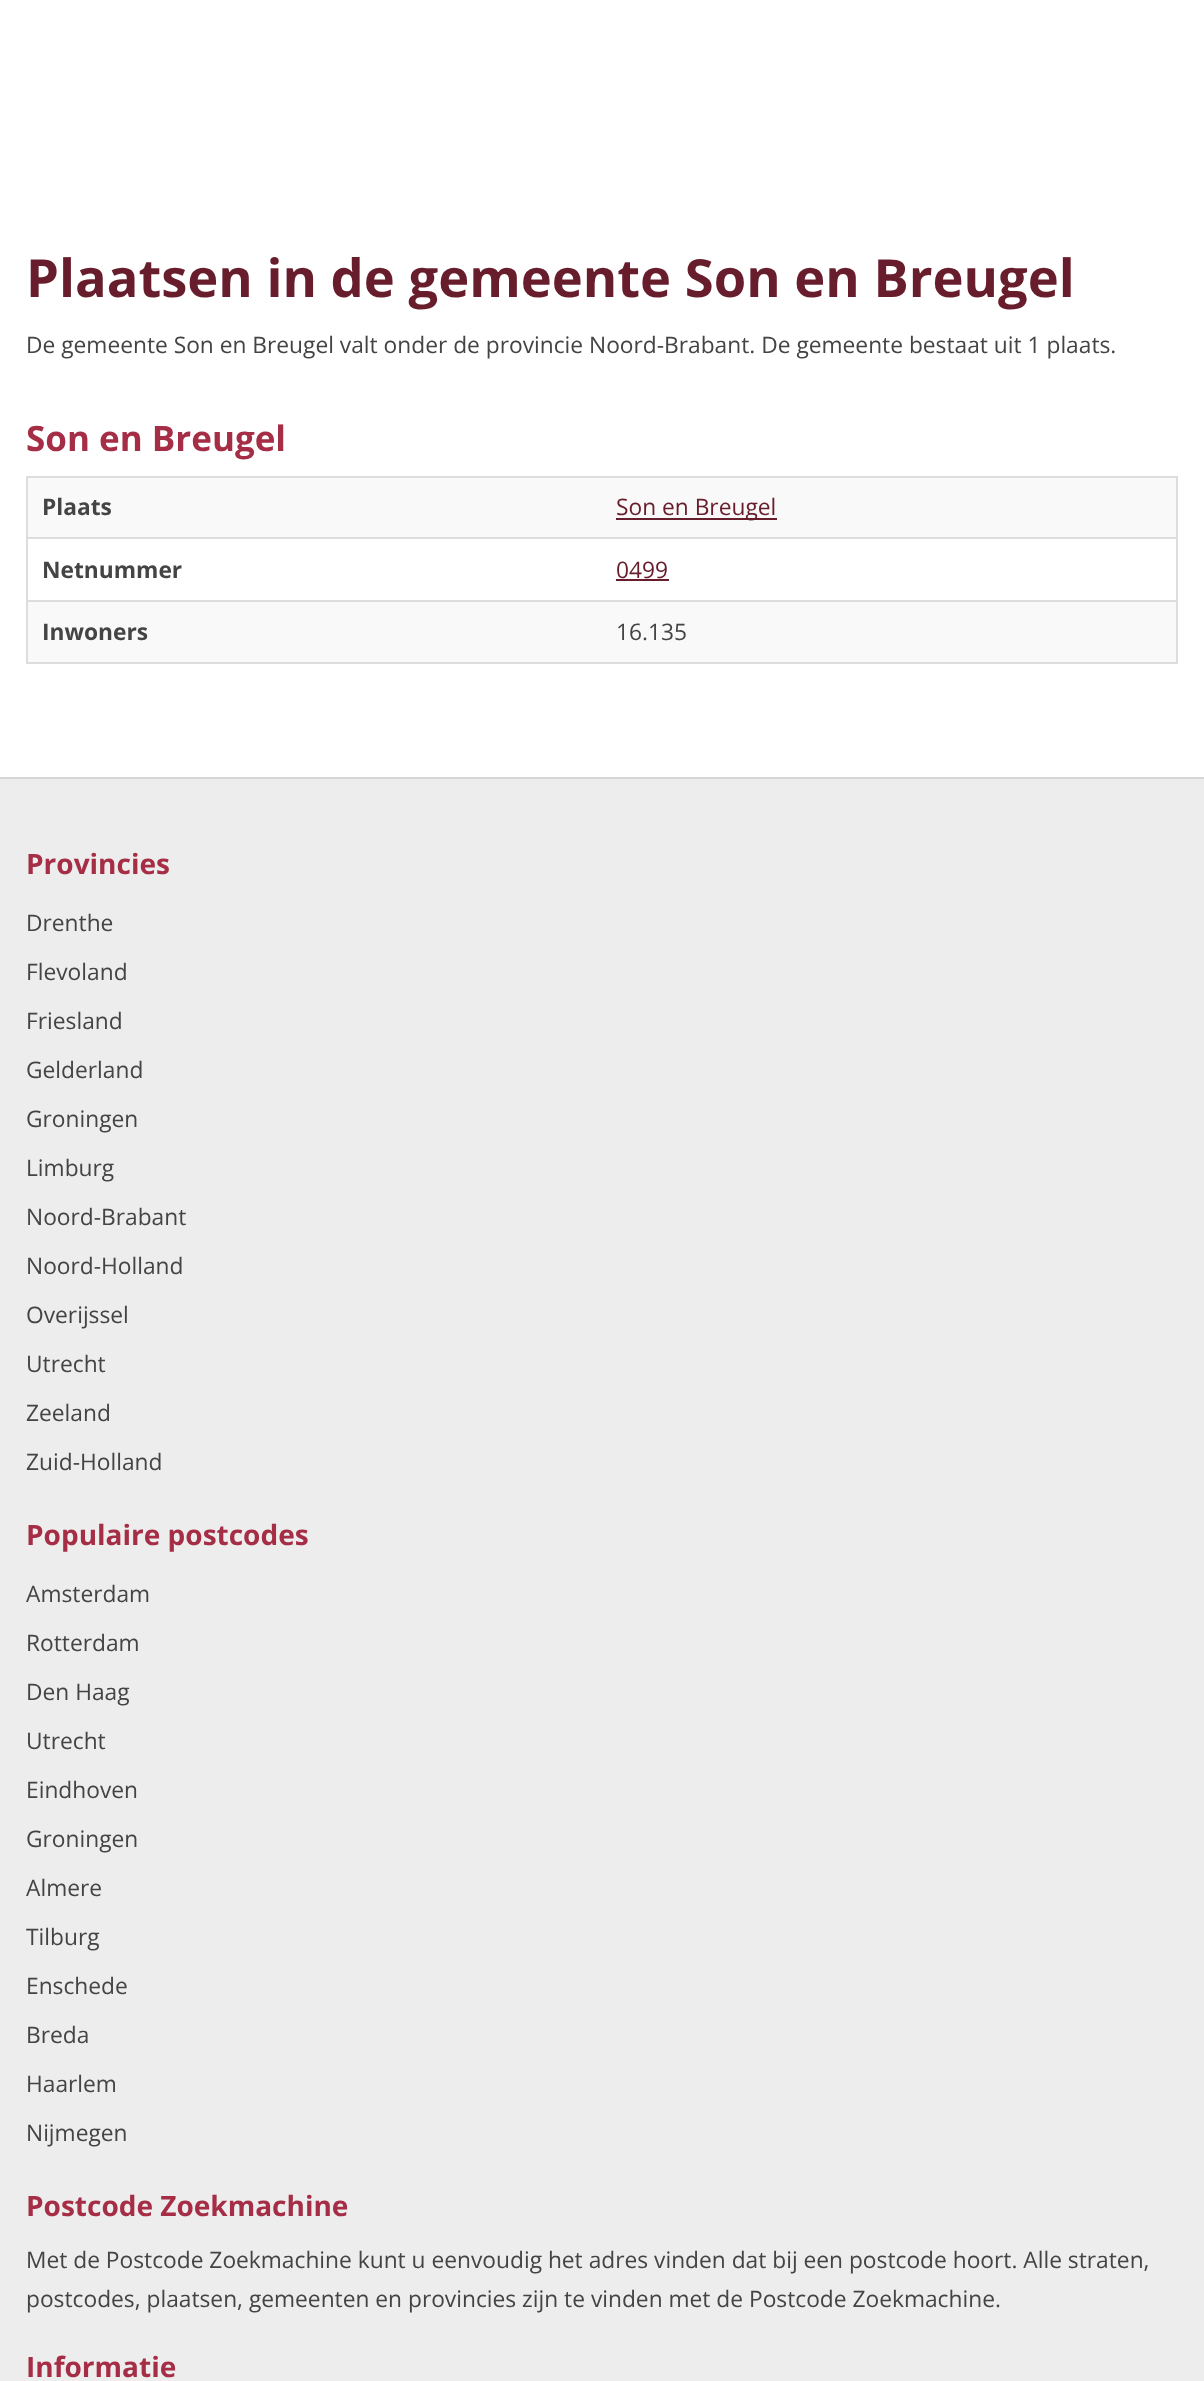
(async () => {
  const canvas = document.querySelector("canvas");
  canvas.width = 1204;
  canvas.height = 2381;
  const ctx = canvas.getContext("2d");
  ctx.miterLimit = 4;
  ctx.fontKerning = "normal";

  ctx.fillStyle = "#ffffff";
  ctx.fillRect(0, 0, 1204, 2381);
  for (const [x, y, w, h, color] of [
    [0, 777, 1204, 2, "#d5d5d5"],
    [26, 476, 1152, 2, "#dddddd"],
    [1176, 476, 2, 187, "#dddddd"],
    [26, 662, 1152, 2, "#dddddd"],
    [26, 476, 2, 187, "#dddddd"],
    [28, 478, 1148, 59, "#f9f9f9"],
    [616, 518, 161, 2, "#671d2b"],
    [26, 537, 1152, 2, "#dddddd"],
    [616, 579, 53, 2, "#671d2b"],
    [28, 602, 1148, 60, "#f9f9f9"],
    [26, 600, 1152, 2, "#dddddd"],
    [0, 779, 1204, 1602, "#ededed"],
  ]) {
    ctx.fillStyle = color;
    ctx.fillRect(x, y, w, h);
  }
  ctx.font = "bold 52.5px Open Sans";
  ctx.fillStyle = "#671d2b";
  ctx.fillText("Plaatsen in de gemeente Son en Breugel", 26, 297);
  ctx.font = "22.75px Open Sans";
  ctx.fillStyle = "#444444";
  ctx.fillText("De gemeente Son en Breugel valt onder de provincie Noord-Brabant. De gemeente bestaat uit 1 plaats.", 26, 353);
  ctx.font = "bold 35px Open Sans";
  ctx.fillStyle = "#a52d45";
  ctx.fillText("Son en Breugel", 26, 451);
  ctx.font = "bold 22.75px Open Sans";
  ctx.fillStyle = "#444444";
  ctx.fillText("Plaats", 42, 515);
  ctx.font = "22.75px Open Sans";
  ctx.fillStyle = "#671d2b";
  ctx.fillText("Son en Breugel", 616, 515);
  ctx.font = "bold 22.75px Open Sans";
  ctx.fillStyle = "#444444";
  ctx.fillText("Netnummer", 42, 578);
  ctx.font = "22.75px Open Sans";
  ctx.fillStyle = "#671d2b";
  ctx.fillText("0499", 616, 578);
  ctx.font = "bold 22.75px Open Sans";
  ctx.fillStyle = "#444444";
  ctx.fillText("Inwoners", 42, 640);
  ctx.font = "22.75px Open Sans";
  ctx.fillText("16.135", 616, 640);
  ctx.font = "bold 28px Open Sans";
  ctx.fillStyle = "#a52d45";
  ctx.fillText("Provincies", 26, 874);
  ctx.font = "22.75px Open Sans";
  ctx.fillStyle = "#444444";
  for (const [text, x, y] of [
    ["Drenthe", 26, 931],
    ["Flevoland", 26, 980],
    ["Friesland", 26, 1029],
    ["Gelderland", 26, 1078],
    ["Groningen", 26, 1127],
    ["Limburg", 26, 1176],
    ["Noord-Brabant", 26, 1225],
    ["Noord-Holland", 26, 1274],
    ["Overijssel", 26, 1323],
    ["Utrecht", 26, 1372],
    ["Zeeland", 26, 1421],
    ["Zuid-Holland", 26, 1470],
  ]) {
    ctx.fillText(text, x, y);
  }
  ctx.font = "bold 28px Open Sans";
  ctx.fillStyle = "#a52d45";
  ctx.fillText("Populaire postcodes", 26, 1545);
  ctx.font = "22.75px Open Sans";
  ctx.fillStyle = "#444444";
  for (const [text, x, y] of [
    ["Amsterdam", 26, 1602],
    ["Rotterdam", 26, 1651],
    ["Den Haag", 26, 1700],
    ["Utrecht", 26, 1749],
    ["Eindhoven", 26, 1798],
    ["Groningen", 26, 1847],
    ["Almere", 26, 1896],
    ["Tilburg", 26, 1945],
    ["Enschede", 26, 1994],
    ["Breda", 26, 2043],
    ["Haarlem", 26, 2092],
    ["Nijmegen", 26, 2141],
  ]) {
    ctx.fillText(text, x, y);
  }
  ctx.font = "bold 28px Open Sans";
  ctx.fillStyle = "#a52d45";
  ctx.fillText("Postcode Zoekmachine", 26, 2216);
  ctx.font = "22.75px Open Sans";
  ctx.fillStyle = "#444444";
  ctx.fillText("Met de Postcode Zoekmachine kunt u eenvoudig het adres vinden dat bij een postcode hoort. Alle straten,", 26, 2268);
  ctx.fillText("postcodes, plaatsen, gemeenten en provincies zijn te vinden met de Postcode Zoekmachine.", 26, 2307);
  ctx.font = "bold 28px Open Sans";
  ctx.fillStyle = "#a52d45";
  ctx.fillText("Informatie", 26, 2377);
})();
